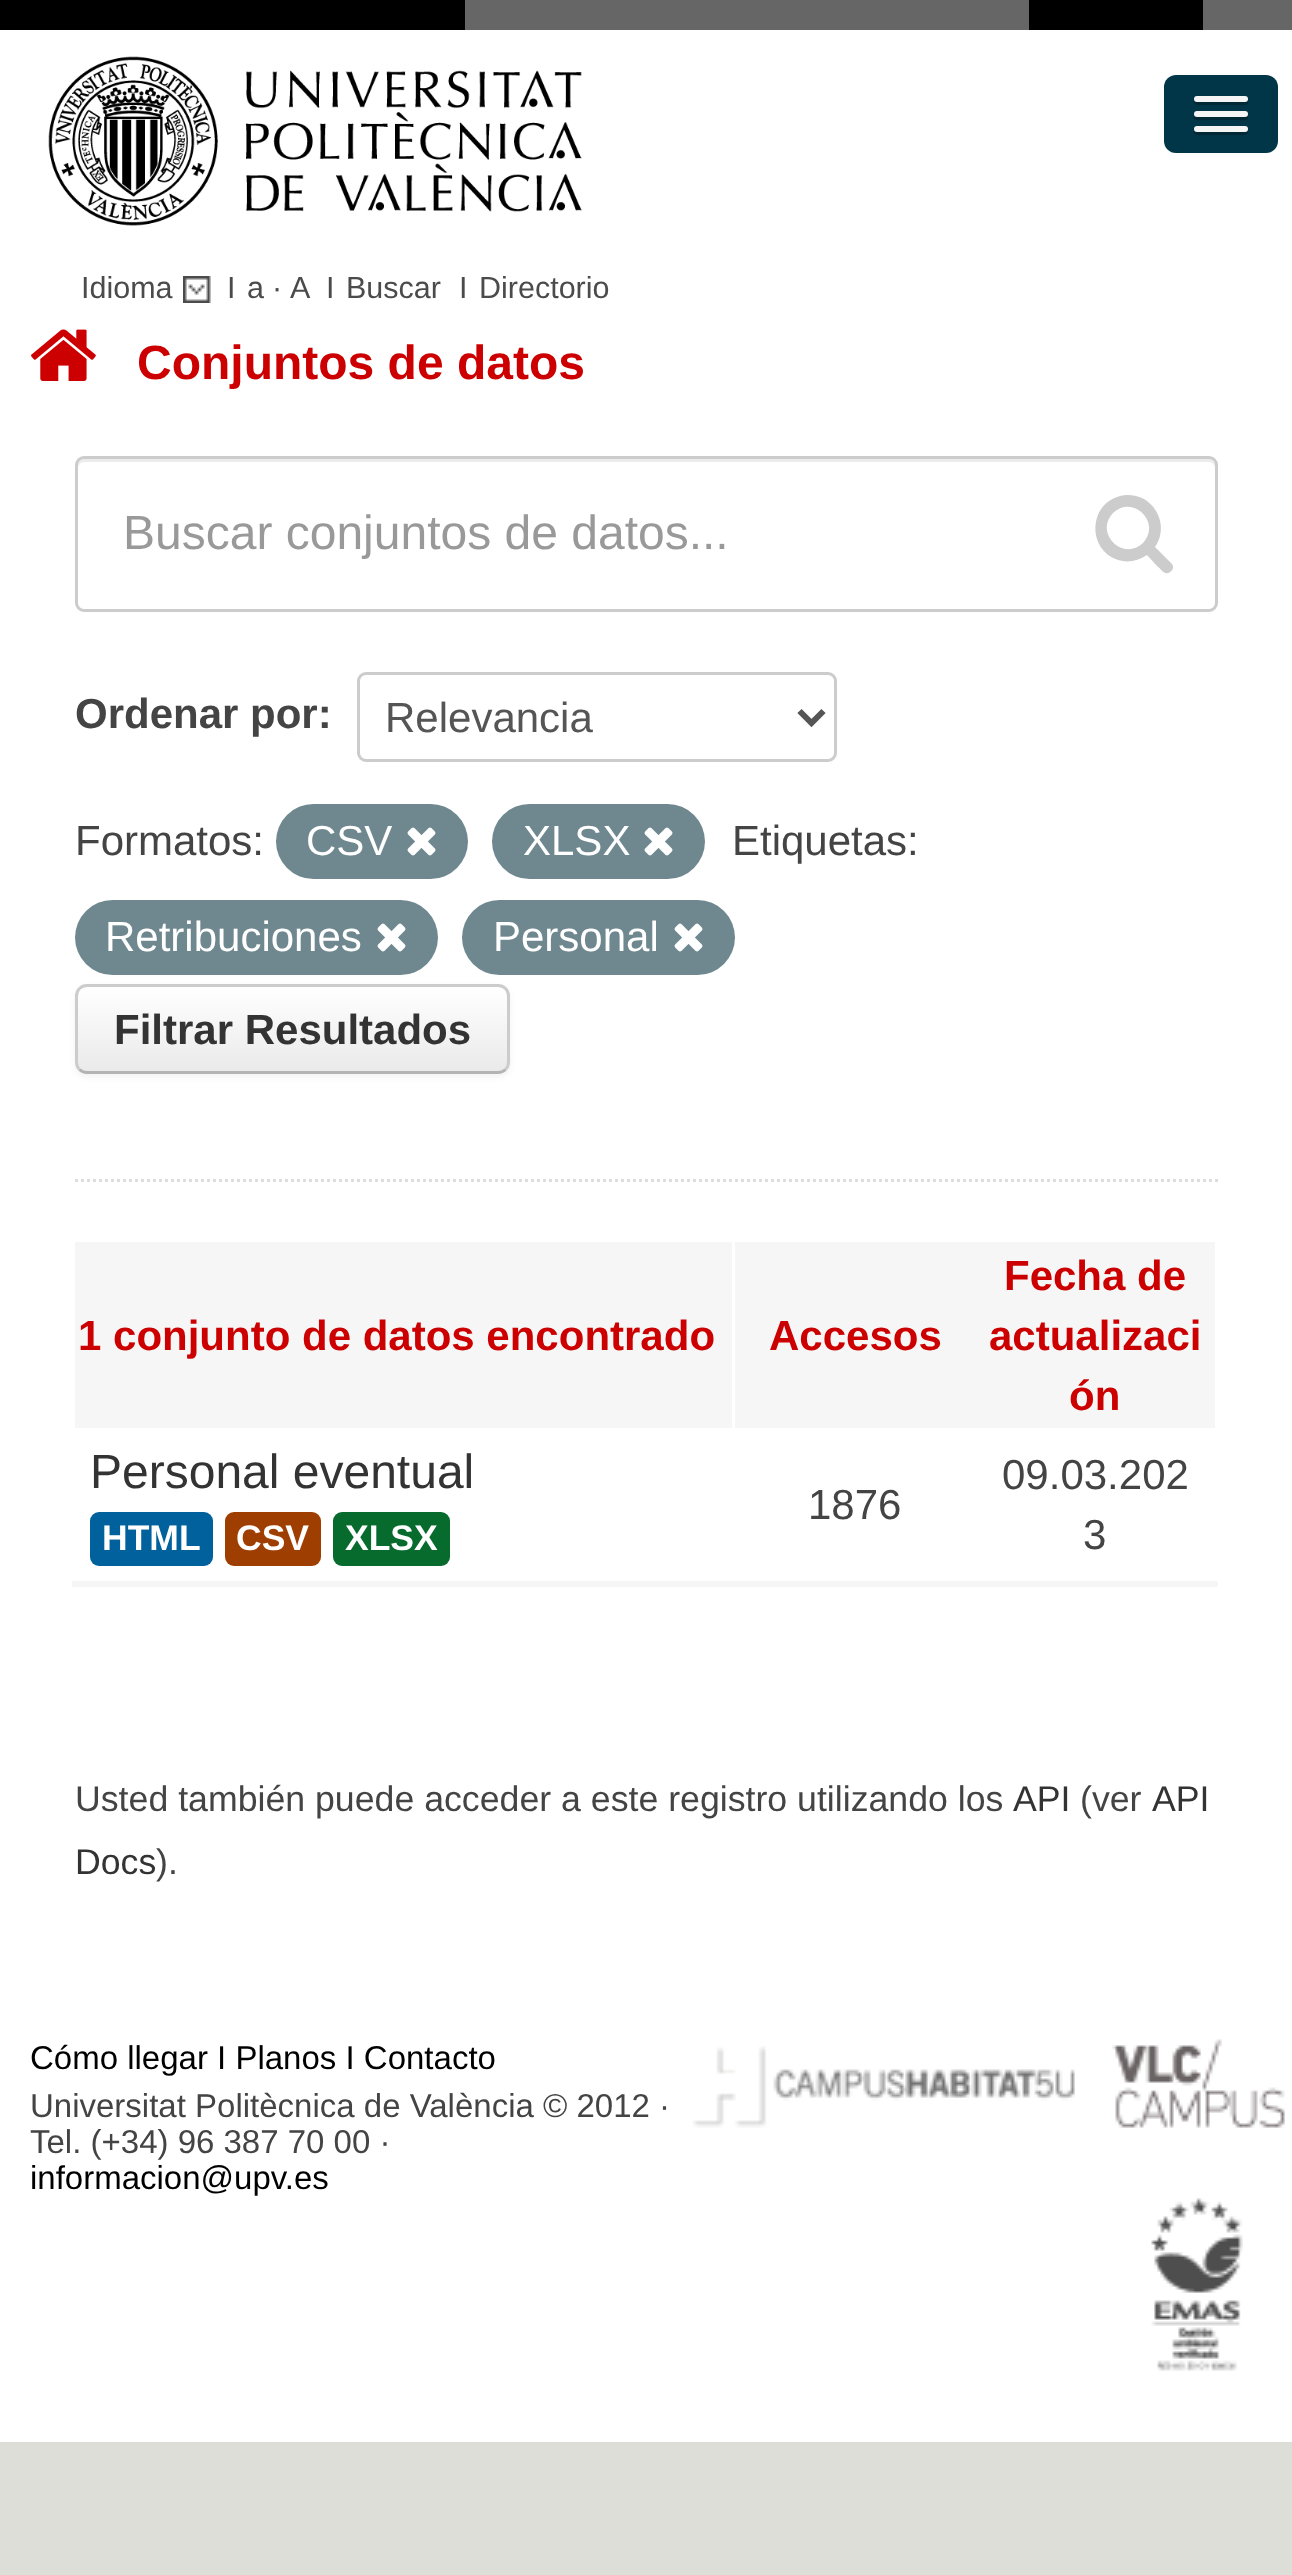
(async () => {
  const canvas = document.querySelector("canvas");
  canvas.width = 1292;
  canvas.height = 2575;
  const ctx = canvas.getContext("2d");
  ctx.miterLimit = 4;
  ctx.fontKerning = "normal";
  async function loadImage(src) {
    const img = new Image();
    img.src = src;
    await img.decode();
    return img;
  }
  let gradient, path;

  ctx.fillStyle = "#deded9";
  ctx.fillRect(0, 0, 1292, 2575);
  for (const [x, y, w, h, color] of [
    [465, 0, 827, 30, "#666666"],
    [0, 0, 465, 30, "#000000"],
    [1029, 0, 174, 30, "#000000"],
    [0, 30, 1292, 1923, "#ffffff"],
  ]) {
    ctx.fillStyle = color;
    ctx.fillRect(x, y, w, h);
  }
  ctx.drawImage(await loadImage("img/1.png"), 48, 56, 534, 170);
  ctx.fillStyle = "#003647";
  ctx.beginPath();
  ctx.roundRect(1164, 75, 114, 78, 12);
  ctx.fill();
  ctx.fillStyle = "#002935";
  path = new Path2D("M1194 100C1191 107 1205 105 1205 105H1237C1237 105 1251 107 1248 100C1247 101 1246 102 1245 102H1197C1196 102 1195 101 1194 100Z");
  ctx.fill(path);
  ctx.fillStyle = "#f5f5f5";
  ctx.beginPath();
  ctx.roundRect(1194, 96, 54, 6, 3);
  ctx.fill();
  ctx.fillStyle = "#002935";
  path = new Path2D("M1194 116C1191 122 1205 120 1205 120H1237C1237 120 1251 122 1248 116C1247 116 1246 117 1245 117H1197C1196 117 1195 116 1194 116Z");
  ctx.fill(path);
  ctx.fillStyle = "#f5f5f5";
  ctx.beginPath();
  ctx.roundRect(1194, 111, 54, 6, 3);
  ctx.fill();
  ctx.fillStyle = "#002935";
  path = new Path2D("M1194 130C1191 137 1205 135 1205 135H1237C1237 135 1251 137 1248 130C1247 131 1246 132 1245 132H1197C1196 132 1195 131 1194 130Z");
  ctx.fill(path);
  ctx.fillStyle = "#f5f5f5";
  ctx.beginPath();
  ctx.roundRect(1194, 126, 54, 6, 3);
  ctx.fill();
  ctx.drawImage(await loadImage("img/2.png"), 183, 276, 28, 27);
  ctx.drawImage(await loadImage("img/3.png"), 31, 329, 65, 52);
  path = new Path2D("M75 1180.5H1218");
  ctx.strokeStyle = "#dddddd";
  ctx.lineWidth = 3;
  ctx.setLineDash([3, 3]);
  ctx.stroke(path);
  ctx.fillStyle = "#ececec";
  path = new Path2D("M84 462H1209C1212 462 1215 465 1215 468V465C1215 462 1212 459 1209 459H84C81 459 78 462 78 465V468C78 465 81 462 84 462Z");
  ctx.fill(path);
  ctx.beginPath();
  ctx.roundRect(76.5, 457.5, 1140, 153, 7.5);
  ctx.strokeStyle = "#cccccc";
  ctx.setLineDash([]);
  ctx.stroke();
  ctx.fillStyle = "#cccccc";
  path = new Path2D("M1143 543C1162 523 1133 494 1113 513C1094 533 1123 562 1143 543ZM1173 567C1173 569 1172 571 1170 572C1165 576 1161 569 1157 566L1147 555C1138 561 1128 563 1118 560C1087 550 1088 504 1120 496C1127 494 1135 495 1142 498C1160 507 1167 530 1155 547L1171 563C1172 564 1173 565 1173 567Z");
  ctx.fill(path);
  ctx.beginPath();
  ctx.roundRect(358.5, 673.5, 477, 87, 7.5);
  ctx.stroke();
  path = new Path2D("M799.5 711L811.5 723L823.5 711");
  ctx.strokeStyle = "#555555";
  ctx.lineWidth = 6;
  ctx.stroke(path);
  ctx.fillStyle = "#6f8890";
  ctx.beginPath();
  ctx.roundRect(276, 804, 192, 75, 37.5);
  ctx.fill();
  ctx.drawImage(await loadImage("img/4.png"), 407, 827, 29, 29);
  ctx.beginPath();
  ctx.roundRect(492, 804, 213, 75, 37.5);
  ctx.fill();
  ctx.drawImage(await loadImage("img/4.png"), 644, 827, 29, 29);
  ctx.beginPath();
  ctx.roundRect(75, 900, 363, 75, 37.5);
  ctx.fill();
  ctx.drawImage(await loadImage("img/4.png"), 377, 923, 29, 29);
  ctx.beginPath();
  ctx.roundRect(462, 900, 273, 75, 37.5);
  ctx.fill();
  ctx.drawImage(await loadImage("img/4.png"), 674, 923, 29, 29);
  ctx.fillStyle = "rgba(0, 0, 0, 0.05)";
  ctx.filter = "blur(3px)";
  ctx.beginPath();
  ctx.roundRect(75, 987, 435, 90, 12);
  ctx.fill();
  ctx.filter = "none";
  ctx.save();
  ctx.beginPath();
  ctx.roundRect(75, 984, 435, 90, 12);
  ctx.clip();
  gradient = ctx.createLinearGradient(293, 987, 293, 1071);
  gradient.addColorStop(0, "#ffffff");
  gradient.addColorStop(1, "#eaeaea");
  ctx.fillStyle = gradient;
  ctx.fillRect(75, 987, 435, 84);
  ctx.restore();
  path = new Path2D("M505.5 1069.5C503.5 1071.5 501 1072.5 498 1072.5H87C84 1072.5 81.5 1071.5 79.5 1069.5");
  ctx.strokeStyle = "#b3b3b3";
  ctx.lineWidth = 3;
  ctx.stroke(path);
  path = new Path2D("M79.5 1069.5C77.5 1067.5 76.5 1065 76.5 1062V996C76.5 993 77.5 990.5 79.5 988.5C81.5 986.5 84 985.5 87 985.5H498C501 985.5 503.5 986.5 505.5 988.5C507.5 990.5 508.5 993 508.5 996V1062C508.5 1065 507.5 1067.5 505.5 1069.5");
  ctx.strokeStyle = "#cccccc";
  ctx.stroke(path);
  ctx.fillStyle = "#f6f6f6";
  ctx.fillRect(75, 1242, 657, 186);
  ctx.fillRect(735, 1242, 480, 186);
  ctx.fillStyle = "#00619c";
  ctx.beginPath();
  ctx.roundRect(90, 1512, 123, 54, 9);
  ctx.fill();
  ctx.fillStyle = "#9e3f01";
  ctx.beginPath();
  ctx.roundRect(225, 1512, 96, 54, 9);
  ctx.fill();
  ctx.fillStyle = "#086b2e";
  ctx.beginPath();
  ctx.roundRect(333, 1512, 117, 54, 9);
  ctx.fill();
  ctx.fillStyle = "#f6f6f6";
  ctx.fillRect(72, 1581, 1146, 6);
  ctx.fillStyle = "#ffffff";
  ctx.fillRect(0, 1953, 1292, 489);
  ctx.drawImage(await loadImage("img/5.png"), 692, 2046, 383, 82);
  ctx.drawImage(await loadImage("img/6.png"), 1112, 2039, 173, 89);
  ctx.drawImage(await loadImage("img/7.png"), 1151, 2198, 92, 173);
  ctx.font = "30.5px Liberation Sans";
  ctx.fillStyle = "#4b4b4b";
  for (const [text, x, y] of [
    ["Idioma", 81, 298],
    ["I", 227, 298],
    ["a", 247, 298],
    ["·", 272, 298],
    ["A", 290, 298],
    ["I", 326, 298],
    ["Buscar", 346, 298],
    ["I", 459, 298],
    ["Directorio", 479, 298],
  ]) {
    ctx.fillText(text, x, y);
  }
  ctx.font = "bold 48px Liberation Sans";
  ctx.fillStyle = "#cc0000";
  ctx.fillText("Conjuntos de datos", 137, 379);
  ctx.font = "48px Liberation Sans";
  ctx.fillStyle = "#999999";
  ctx.fillText("Buscar conjuntos de datos...", 123, 549);
  ctx.font = "bold 42px Liberation Sans";
  ctx.fillStyle = "#444444";
  ctx.fillText("Ordenar por:", 75, 728);
  ctx.font = "42px Liberation Sans";
  ctx.fillStyle = "#555555";
  ctx.fillText("Relevancia", 385, 732);
  ctx.fillStyle = "#444444";
  ctx.fillText("Formatos:", 75, 855);
  ctx.fillStyle = "#ffffff";
  ctx.fillText("CSV", 306, 855);
  ctx.fillText("XLSX", 523, 855);
  ctx.fillStyle = "#444444";
  ctx.fillText("Etiquetas:", 732, 855);
  ctx.fillStyle = "#ffffff";
  ctx.fillText("Retribuciones", 105, 951);
  ctx.fillText("Personal", 493, 951);
  ctx.font = "bold 42px Liberation Sans";
  ctx.fillStyle = "#333333";
  ctx.fillText("Filtrar Resultados", 114, 1044);
  ctx.fillStyle = "#cc0000";
  for (const [text, x, y] of [
    ["1 conjunto de datos encontrado", 78, 1350],
    ["Accesos", 769, 1350],
    ["Fecha de", 1004, 1290],
    ["actualizaci", 989, 1350],
    ["ón", 1069, 1410],
  ]) {
    ctx.fillText(text, x, y);
  }
  ctx.font = "48px Liberation Sans";
  ctx.fillStyle = "#333333";
  ctx.fillText("Personal eventual", 90, 1488);
  ctx.font = "bold 35.5px Liberation Sans";
  ctx.fillStyle = "#ffffff";
  for (const [text, x, y] of [
    ["HTML", 102, 1550],
    ["CSV", 236, 1550],
    ["XLSX", 345, 1550],
  ]) {
    ctx.fillText(text, x, y);
  }
  ctx.font = "42px Liberation Sans";
  ctx.fillStyle = "#444444";
  for (const [text, x, y] of [
    ["1876", 808, 1519],
    ["09.03.202", 1002, 1489],
    ["3", 1083, 1549],
  ]) {
    ctx.fillText(text, x, y);
  }
  ctx.font = "35.7px Liberation Sans";
  ctx.fillText("Usted también puede acceder a este registro utilizando los", 75, 1811);
  ctx.fillStyle = "#333333";
  ctx.fillText("API", 1013, 1811);
  ctx.fillStyle = "#444444";
  ctx.fillText("(ver", 1080, 1811);
  ctx.fillStyle = "#333333";
  ctx.fillText("API", 1152, 1811);
  ctx.fillText("Docs", 75, 1874);
  ctx.fillStyle = "#444444";
  ctx.fillText(").", 156, 1874);
  ctx.font = "33px Liberation Sans";
  ctx.fillStyle = "#000000";
  ctx.fillText("Cómo llegar I Planos I Contacto", 30, 2069);
  ctx.fillStyle = "#444444";
  ctx.fillText("Universitat Politècnica de València © 2012 ·", 30, 2117);
  ctx.fillText("Tel. (+34) 96 387 70 00 ·", 30, 2153);
  ctx.fillStyle = "#000000";
  ctx.fillText("informacion@upv.es", 30, 2189);
})();
